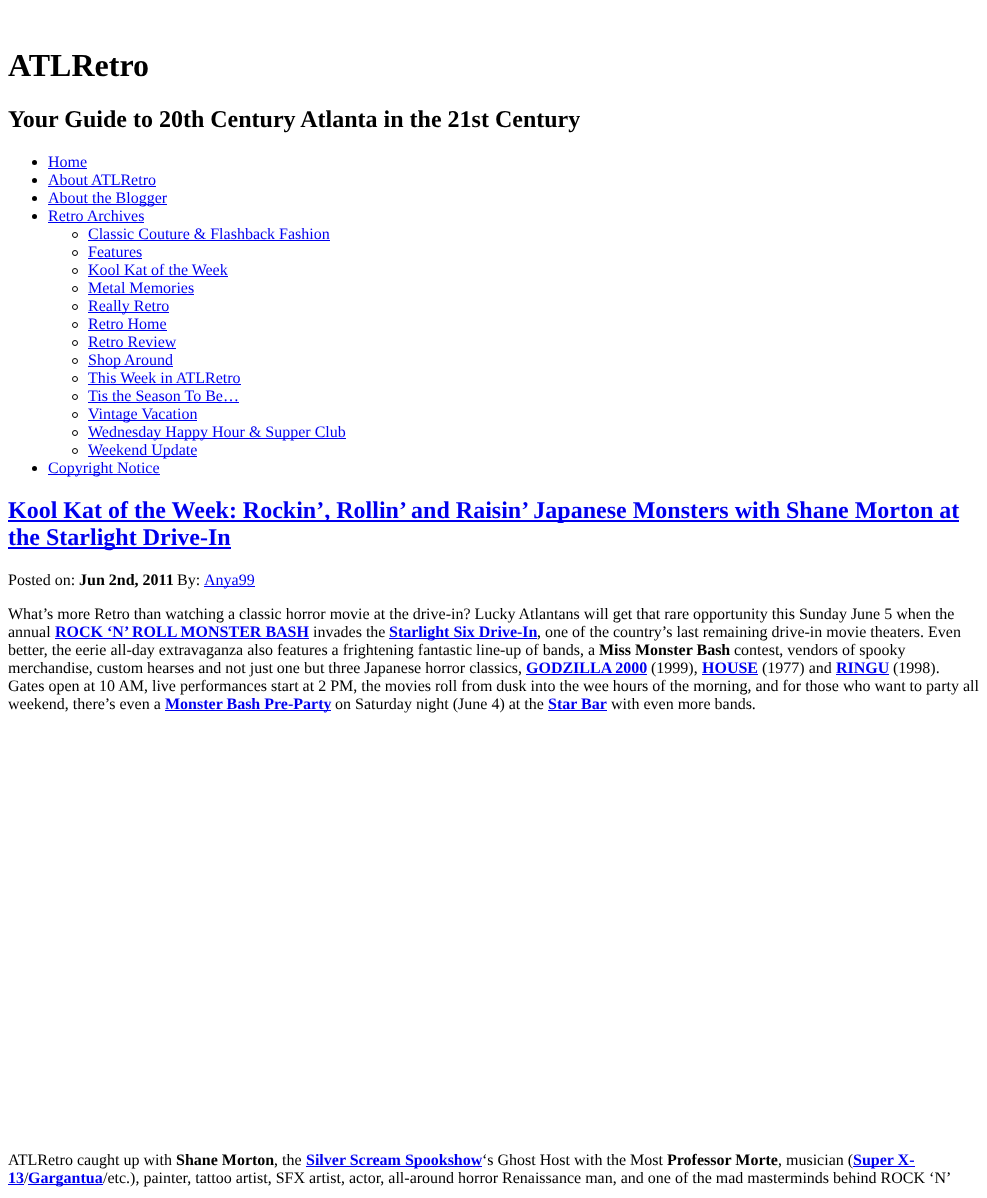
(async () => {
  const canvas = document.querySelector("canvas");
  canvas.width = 987;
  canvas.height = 1198;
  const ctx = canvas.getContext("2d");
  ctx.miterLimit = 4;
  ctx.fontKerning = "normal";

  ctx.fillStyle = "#ffffff";
  ctx.fillRect(0, 0, 987, 1198);
  ctx.fillStyle = "#000000";
  ctx.beginPath();
  ctx.arc(34.5, 162.5, 2.5, 0, Math.PI * 2);
  ctx.fill();
  ctx.fillStyle = "#0000ee";
  ctx.fillRect(48, 168, 39, 1);
  ctx.fillStyle = "#000000";
  ctx.beginPath();
  ctx.arc(34.5, 180.5, 2.5, 0, Math.PI * 2);
  ctx.fill();
  ctx.fillStyle = "#0000ee";
  ctx.fillRect(48, 186, 108, 1);
  ctx.fillStyle = "#000000";
  ctx.beginPath();
  ctx.arc(34.5, 198.5, 2.5, 0, Math.PI * 2);
  ctx.fill();
  ctx.fillStyle = "#0000ee";
  ctx.fillRect(48, 204, 119, 1);
  ctx.fillStyle = "#000000";
  ctx.beginPath();
  ctx.arc(34.5, 216.5, 2.5, 0, Math.PI * 2);
  ctx.fill();
  ctx.fillStyle = "#0000ee";
  ctx.fillRect(48, 222, 96, 1);
  ctx.beginPath();
  ctx.arc(75, 235, 2.5, 0, Math.PI * 2);
  ctx.strokeStyle = "#000000";
  ctx.stroke();
  ctx.fillRect(88, 240, 242, 1);
  ctx.beginPath();
  ctx.arc(75, 253, 2.5, 0, Math.PI * 2);
  ctx.stroke();
  ctx.fillRect(88, 258, 54, 1);
  ctx.beginPath();
  ctx.arc(75, 271, 2.5, 0, Math.PI * 2);
  ctx.stroke();
  ctx.fillRect(88, 276, 140, 1);
  ctx.beginPath();
  ctx.arc(75, 289, 2.5, 0, Math.PI * 2);
  ctx.stroke();
  ctx.fillRect(88, 294, 106, 1);
  ctx.beginPath();
  ctx.arc(75, 307, 2.5, 0, Math.PI * 2);
  ctx.stroke();
  ctx.fillRect(88, 312, 81, 1);
  ctx.beginPath();
  ctx.arc(75, 325, 2.5, 0, Math.PI * 2);
  ctx.stroke();
  ctx.fillRect(88, 330, 79, 1);
  ctx.beginPath();
  ctx.arc(75, 343, 2.5, 0, Math.PI * 2);
  ctx.stroke();
  ctx.fillRect(88, 348, 88, 1);
  ctx.beginPath();
  ctx.arc(75, 361, 2.5, 0, Math.PI * 2);
  ctx.stroke();
  ctx.fillRect(88, 366, 85, 1);
  ctx.beginPath();
  ctx.arc(75, 379, 2.5, 0, Math.PI * 2);
  ctx.stroke();
  ctx.fillRect(88, 384, 153, 1);
  ctx.beginPath();
  ctx.arc(75, 397, 2.5, 0, Math.PI * 2);
  ctx.stroke();
  ctx.fillRect(88, 402, 151, 1);
  ctx.beginPath();
  ctx.arc(75, 415, 2.5, 0, Math.PI * 2);
  ctx.stroke();
  ctx.fillRect(88, 420, 109, 1);
  ctx.beginPath();
  ctx.arc(75, 433, 2.5, 0, Math.PI * 2);
  ctx.stroke();
  ctx.fillRect(88, 438, 258, 1);
  ctx.beginPath();
  ctx.arc(75, 451, 2.5, 0, Math.PI * 2);
  ctx.stroke();
  ctx.fillRect(88, 456, 109, 1);
  ctx.fillStyle = "#000000";
  ctx.beginPath();
  ctx.arc(34.5, 468.5, 2.5, 0, Math.PI * 2);
  ctx.fill();
  for (const [x, y, w, h, color] of [
    [48, 474, 112, 1, "#0000ee"],
    [8, 520, 951, 2, "#0000ee"],
    [8, 547, 223, 2, "#0000ee"],
    [204, 586, 51, 1, "#0000ee"],
    [55, 638, 254, 1, "#0000ee"],
    [389, 638, 148, 1, "#0000ee"],
    [526, 674, 121, 1, "#0000ee"],
    [702, 674, 56, 1, "#0000ee"],
    [836, 674, 53, 1, "#0000ee"],
    [165, 710, 166, 1, "#0000ee"],
    [548, 710, 59, 1, "#0000ee"],
    [306, 1166, 176, 1, "#0000ee"],
    [853, 1166, 62, 1, "#0000ee"],
    [8, 1184, 16, 1, "#0000ee"],
    [28, 1184, 75, 1, "#0000ee"],
  ]) {
    ctx.fillStyle = color;
    ctx.fillRect(x, y, w, h);
  }
  ctx.font = "bold 32px Liberation Serif";
  ctx.fillStyle = "#000000";
  ctx.fillText("ATLRetro", 8, 76);
  ctx.font = "bold 24px Liberation Serif";
  ctx.fillText("Your Guide to 20th Century Atlanta in the 21st Century", 8, 127);
  ctx.font = "16px Liberation Serif";
  ctx.fillStyle = "#0000ee";
  for (const [text, x, y] of [
    ["Home", 48, 167],
    ["About ATLRetro", 48, 185],
    ["About the Blogger", 48, 203],
    ["Retro Archives", 48, 221],
    ["Classic Couture & Flashback Fashion", 88, 239],
    ["Features", 88, 257],
    ["Kool Kat of the Week", 88, 275],
    ["Metal Memories", 88, 293],
    ["Really Retro", 88, 311],
    ["Retro Home", 88, 329],
    ["Retro Review", 88, 347],
    ["Shop Around", 88, 365],
    ["This Week in ATLRetro", 88, 383],
    ["Tis the Season To Be…", 88, 401],
    ["Vintage Vacation", 88, 419],
    ["Wednesday Happy Hour & Supper Club", 88, 437],
    ["Weekend Update", 88, 455],
    ["Copyright Notice", 48, 473],
  ]) {
    ctx.fillText(text, x, y);
  }
  ctx.font = "bold 24px Liberation Serif";
  ctx.fillText("Kool Kat of the Week: Rockin’, Rollin’ and Raisin’ Japanese Monsters with Shane Morton at", 8, 518);
  ctx.fillText("the Starlight Drive-In", 8, 545);
  ctx.font = "16px Liberation Serif";
  ctx.fillStyle = "#000000";
  ctx.fillText("Posted on:", 8, 585);
  ctx.font = "bold 16px Liberation Serif";
  ctx.fillText("Jun 2nd, 2011", 79, 585);
  ctx.font = "16px Liberation Serif";
  ctx.fillText("By:", 177, 585);
  ctx.fillStyle = "#0000ee";
  ctx.fillText("Anya99", 204, 585);
  ctx.fillStyle = "#000000";
  ctx.fillText("What’s more Retro than watching a classic horror movie at the drive-in? Lucky Atlantans will get that rare opportunity this Sunday June 5 when the", 8, 619);
  ctx.fillText("annual", 8, 637);
  ctx.font = "bold 16px Liberation Serif";
  ctx.fillStyle = "#0000ee";
  ctx.fillText("ROCK ‘N’ ROLL MONSTER BASH", 55, 637);
  ctx.font = "16px Liberation Serif";
  ctx.fillStyle = "#000000";
  ctx.fillText("invades the", 313, 637);
  ctx.font = "bold 16px Liberation Serif";
  ctx.fillStyle = "#0000ee";
  ctx.fillText("Starlight Six Drive-In", 389, 637);
  ctx.font = "16px Liberation Serif";
  ctx.fillStyle = "#000000";
  ctx.fillText(", one of the country’s last remaining drive-in movie theaters. Even", 537, 637);
  ctx.fillText("better, the eerie all-day extravaganza also features a frightening fantastic line-up of bands, a", 8, 655);
  ctx.font = "bold 16px Liberation Serif";
  ctx.fillText("Miss Monster Bash", 599, 655);
  ctx.font = "16px Liberation Serif";
  ctx.fillText("contest, vendors of spooky", 734, 655);
  ctx.fillText("merchandise, custom hearses and not just one but three Japanese horror classics,", 8, 673);
  ctx.font = "bold 16px Liberation Serif";
  ctx.fillStyle = "#0000ee";
  ctx.fillText("GODZILLA 2000", 526, 673);
  ctx.font = "16px Liberation Serif";
  ctx.fillStyle = "#000000";
  ctx.fillText("(1999),", 651, 673);
  ctx.font = "bold 16px Liberation Serif";
  ctx.fillStyle = "#0000ee";
  ctx.fillText("HOUSE", 702, 673);
  ctx.font = "16px Liberation Serif";
  ctx.fillStyle = "#000000";
  ctx.fillText("(1977) and", 762, 673);
  ctx.font = "bold 16px Liberation Serif";
  ctx.fillStyle = "#0000ee";
  ctx.fillText("RINGU", 836, 673);
  ctx.font = "16px Liberation Serif";
  ctx.fillStyle = "#000000";
  for (const [text, x, y] of [
    ["(1998).", 893, 673],
    ["Gates open at 10 AM, live performances start at 2 PM, the movies roll from dusk into the wee hours of the morning, and for those who want to party all", 8, 691],
    ["weekend, there’s even a", 8, 709],
  ]) {
    ctx.fillText(text, x, y);
  }
  ctx.font = "bold 16px Liberation Serif";
  ctx.fillStyle = "#0000ee";
  ctx.fillText("Monster Bash Pre-Party", 165, 709);
  ctx.font = "16px Liberation Serif";
  ctx.fillStyle = "#000000";
  ctx.fillText("on Saturday night (June 4) at the", 335, 709);
  ctx.font = "bold 16px Liberation Serif";
  ctx.fillStyle = "#0000ee";
  ctx.fillText("Star Bar", 548, 709);
  ctx.font = "16px Liberation Serif";
  ctx.fillStyle = "#000000";
  ctx.fillText("with even more bands.", 611, 709);
  ctx.fillText("ATLRetro caught up with", 8, 1165);
  ctx.font = "bold 16px Liberation Serif";
  ctx.fillText("Shane Morton", 176, 1165);
  ctx.font = "16px Liberation Serif";
  ctx.fillText(", the", 274, 1165);
  ctx.font = "bold 16px Liberation Serif";
  ctx.fillStyle = "#0000ee";
  ctx.fillText("Silver Scream Spookshow", 306, 1165);
  ctx.font = "16px Liberation Serif";
  ctx.fillStyle = "#000000";
  ctx.fillText("‘s Ghost Host with the Most", 482, 1165);
  ctx.font = "bold 16px Liberation Serif";
  ctx.fillText("Professor Morte", 667, 1165);
  ctx.font = "16px Liberation Serif";
  ctx.fillText(", musician (", 778, 1165);
  ctx.font = "bold 16px Liberation Serif";
  ctx.fillStyle = "#0000ee";
  ctx.fillText("Super X-", 853, 1165);
  ctx.fillText("13", 8, 1183);
  ctx.font = "16px Liberation Serif";
  ctx.fillStyle = "#000000";
  ctx.fillText("/", 24, 1183);
  ctx.font = "bold 16px Liberation Serif";
  ctx.fillStyle = "#0000ee";
  ctx.fillText("Gargantua", 28, 1183);
  ctx.font = "16px Liberation Serif";
  ctx.fillStyle = "#000000";
  ctx.fillText("/etc.), painter, tattoo artist, SFX artist, actor, all-around horror Renaissance man, and one of the mad masterminds behind ROCK ‘N’", 103, 1183);
})();
